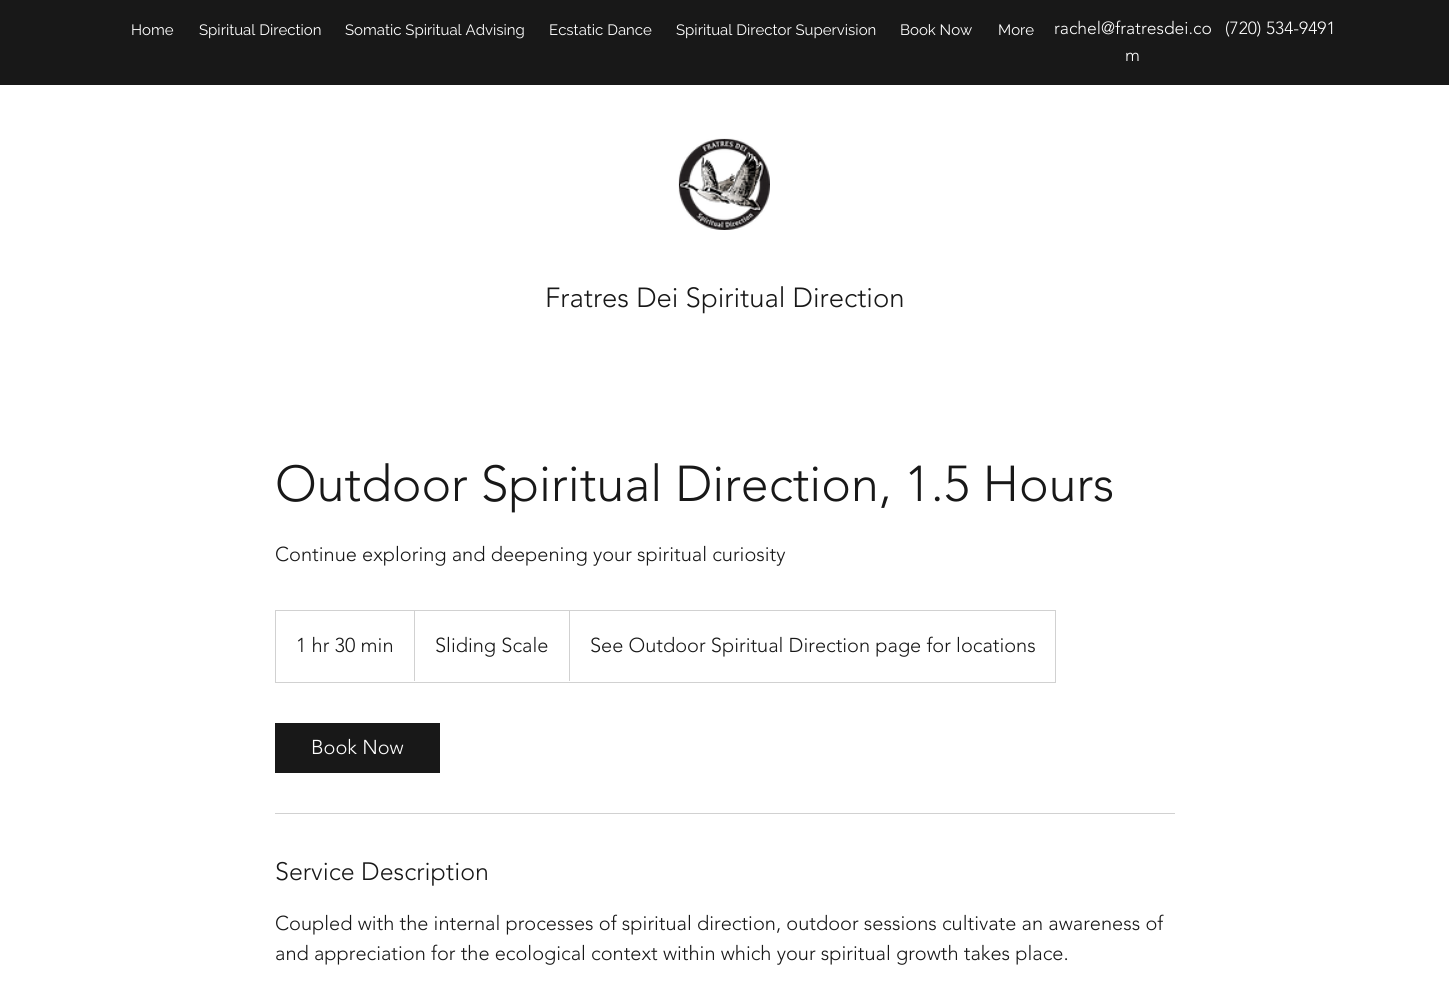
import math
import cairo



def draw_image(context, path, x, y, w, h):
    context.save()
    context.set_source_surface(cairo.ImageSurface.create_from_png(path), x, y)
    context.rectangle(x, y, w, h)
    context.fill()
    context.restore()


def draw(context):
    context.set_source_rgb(1, 1, 1)
    context.paint()
    context.set_source_rgb(24 / 255, 24 / 255, 24 / 255)
    context.rectangle(0, 0, 1449, 85)
    context.fill()
    draw_image(context, "images/1.png", 678, 138, 92, 92)
    context.rectangle(275.5, 610.5, 780, 72)
    context.set_source_rgb(209 / 255, 209 / 255, 209 / 255)
    context.set_line_width(1)
    context.stroke()
    context.new_path()
    context.move_to(414, 681)
    context.line_to(414, 610)
    context.line_to(415, 611)
    context.line_to(415, 681)
    context.close_path()
    context.fill()
    context.new_path()
    context.move_to(569, 681)
    context.line_to(569, 610)
    context.line_to(570, 611)
    context.line_to(570, 681)
    context.close_path()
    context.fill()
    context.set_source_rgb(24 / 255, 24 / 255, 24 / 255)
    context.rectangle(275, 723, 165, 50)
    context.fill()
    context.set_source_rgb(209 / 255, 209 / 255, 209 / 255)
    context.rectangle(275, 813, 900, 1)
    context.fill()
    context.select_font_face("Raleway")
    context.set_font_size(15)
    context.set_source_rgb(1, 1, 1)
    context.move_to(131, 35)
    context.show_text("Home")
    context.move_to(199, 35)
    context.show_text("Spiritual Direction")
    context.move_to(345, 35)
    context.show_text("Somatic Spiritual Advising")
    context.move_to(549, 35)
    context.show_text("Ecstatic Dance")
    context.move_to(676, 35)
    context.show_text("Spiritual Director Supervision")
    context.move_to(900, 35)
    context.show_text("Book Now")
    context.move_to(998, 35)
    context.show_text("More")
    context.select_font_face("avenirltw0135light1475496 Light")
    context.set_font_size(17.5)
    context.move_to(1054, 34)
    context.show_text("rachel@fratresdei.co")
    context.move_to(1125, 61)
    context.show_text("m")
    context.move_to(1225, 34)
    context.show_text("(720) 534-9491")
    context.set_font_size(27.5)
    context.set_source_rgb(24 / 255, 24 / 255, 24 / 255)
    context.move_to(545, 307)
    context.show_text("Fratres Dei Spiritual Direction")
    context.set_font_size(50)
    context.move_to(275, 501)
    context.show_text("Outdoor Spiritual Direction, 1.5 Hours")
    context.set_font_size(20)
    context.move_to(275, 561)
    context.show_text("Continue exploring and deepening your spiritual curiosity")
    context.move_to(296, 652)
    context.show_text("1 hr 30 min")
    context.move_to(435, 652)
    context.show_text("Sliding Scale")
    context.move_to(590, 652)
    context.show_text("See Outdoor Spiritual Direction page for locations")
    context.set_source_rgb(1, 1, 1)
    context.move_to(311, 754)
    context.show_text("Book Now")
    context.set_font_size(25)
    context.set_source_rgb(24 / 255, 24 / 255, 24 / 255)
    context.move_to(275, 880)
    context.show_text("Service Description")
    context.set_font_size(20)
    context.move_to(275, 930)
    context.show_text("Coupled with the internal processes of spiritual direction, outdoor sessions cultivate an awareness of")
    context.move_to(275, 960)
    context.show_text("and appreciation for the ecological context within which your spiritual growth takes place.")


surface = cairo.ImageSurface(cairo.Format.RGB24, 1449, 994)
context = cairo.Context(surface)
options = cairo.FontOptions()
options.set_hint_metrics(cairo.HintMetrics.OFF)
options.set_hint_style(cairo.HintStyle.NONE)
context.set_font_options(options)
context.set_miter_limit(4)
draw(context)
surface.write_to_png("out.png")
